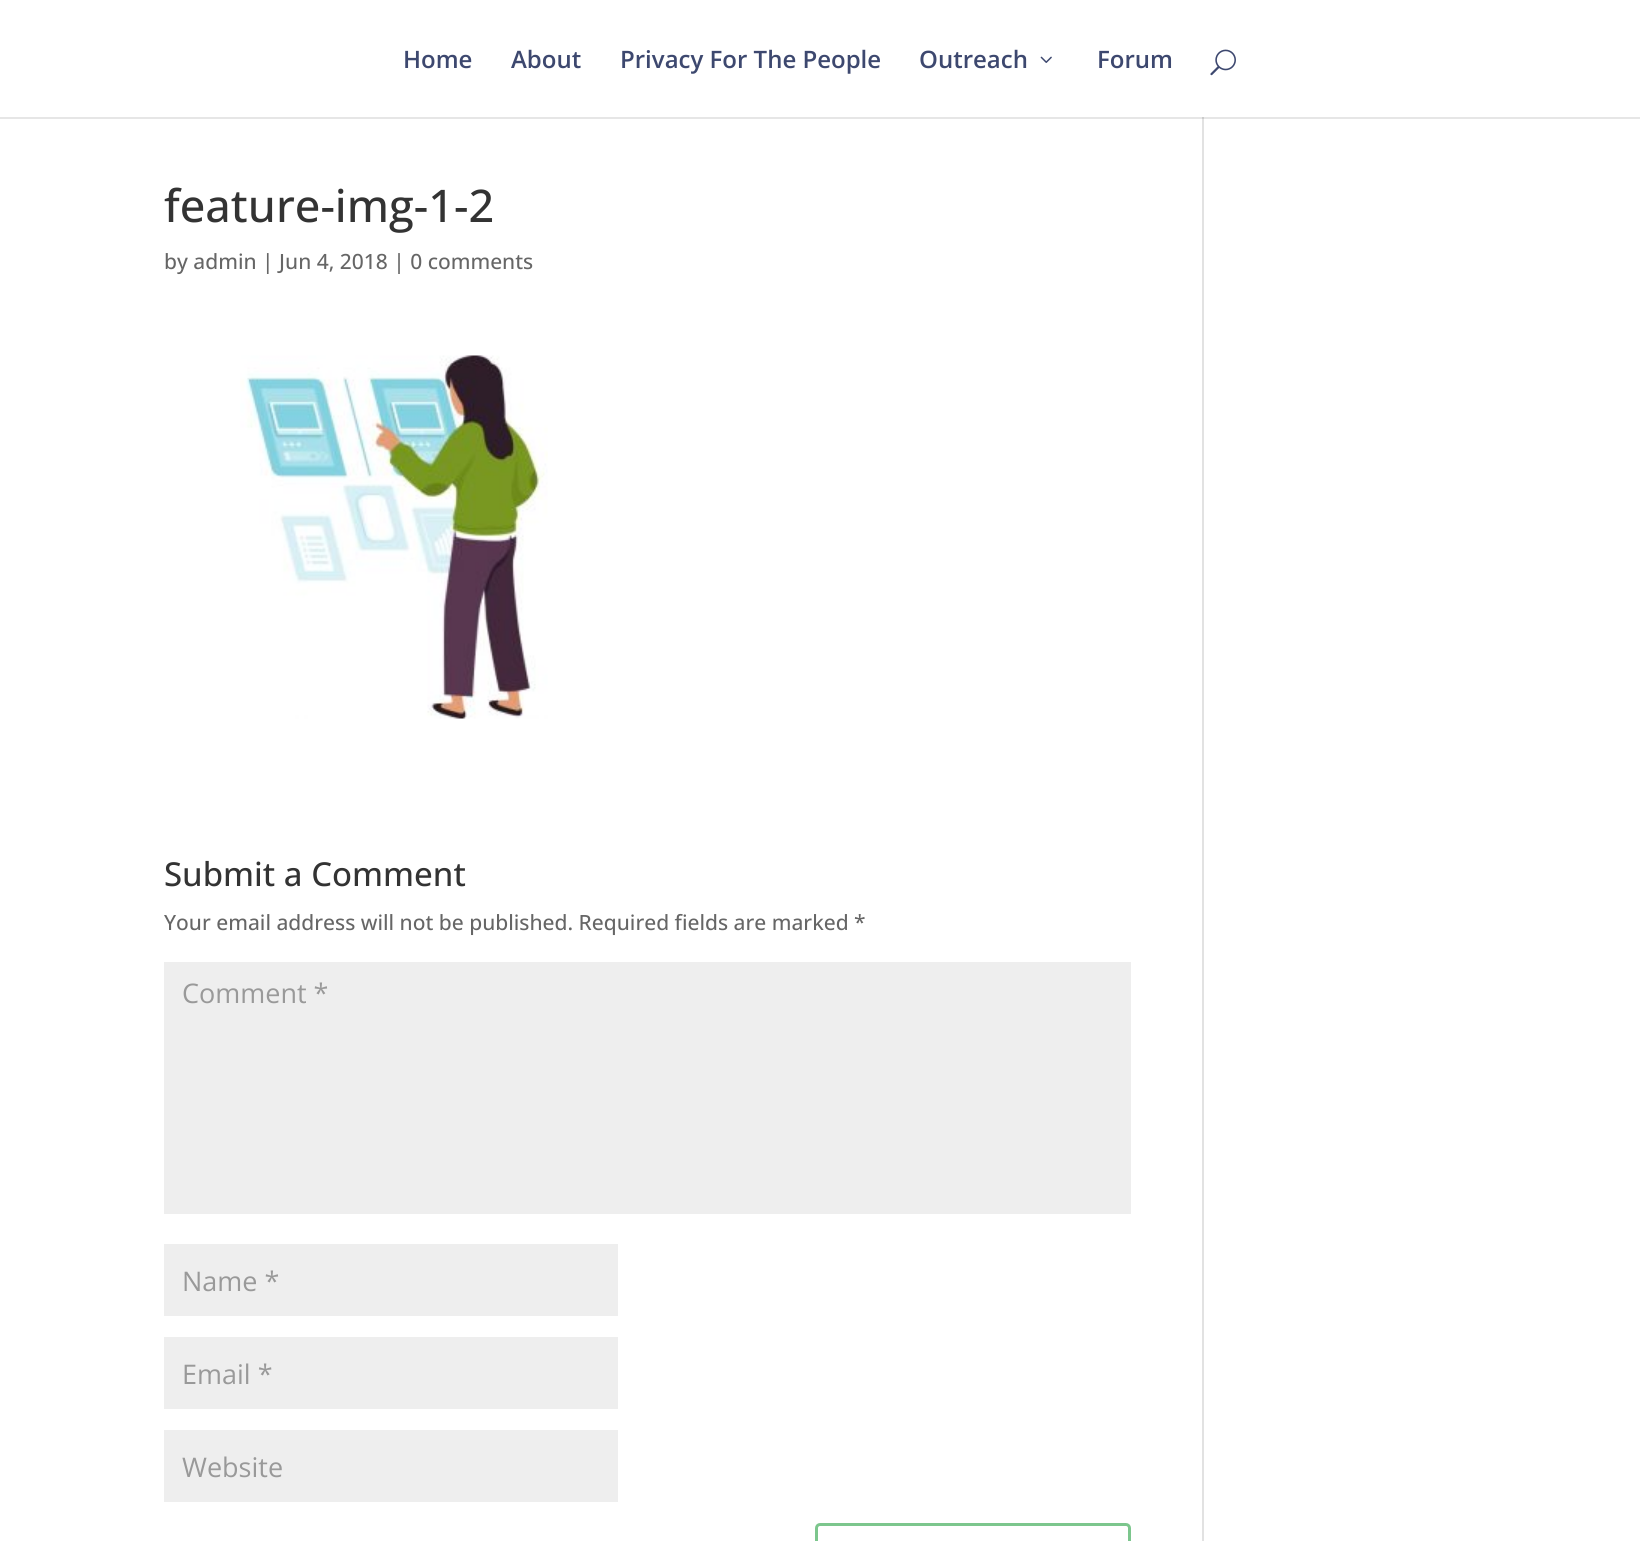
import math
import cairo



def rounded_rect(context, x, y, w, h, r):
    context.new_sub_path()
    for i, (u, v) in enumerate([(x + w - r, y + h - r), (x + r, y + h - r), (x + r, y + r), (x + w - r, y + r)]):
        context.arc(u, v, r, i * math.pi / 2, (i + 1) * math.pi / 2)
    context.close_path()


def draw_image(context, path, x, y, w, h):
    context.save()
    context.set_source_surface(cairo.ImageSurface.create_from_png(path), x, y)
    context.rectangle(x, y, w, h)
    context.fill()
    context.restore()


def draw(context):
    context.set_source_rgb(1, 1, 1)
    context.paint()
    context.set_source_rgb(230 / 255, 230 / 255, 230 / 255)
    context.rectangle(0, 117, 1640, 2)
    context.fill()
    draw_image(context, "images/1.png", 1040, 56, 12, 7)
    draw_image(context, "images/2.png", 1210, 49, 26, 27)
    draw_image(context, "images/3.png", 240, 355, 308, 364)
    context.set_source_rgb(238 / 255, 238 / 255, 238 / 255)
    context.rectangle(164, 962, 967, 252)
    context.fill()
    context.rectangle(164, 1244, 454, 72)
    context.fill()
    context.rectangle(164, 1337, 454, 72)
    context.fill()
    context.rectangle(164, 1430, 454, 72)
    context.fill()
    rounded_rect(context, 816.5, 1524.5, 313, 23, 3.5)
    context.set_source_rgb(124 / 255, 198 / 255, 141 / 255)
    context.set_line_width(3)
    context.stroke()
    context.set_source_rgb(226 / 255, 226 / 255, 226 / 255)
    context.rectangle(1202, 119, 2, 1422)
    context.fill()
    context.set_source_rgb(203 / 255, 203 / 255, 203 / 255)
    context.rectangle(1202, 117, 2, 2)
    context.fill()
    context.select_font_face("Open Sans SemiBold")
    context.set_font_size(24)
    context.set_source_rgb(61 / 255, 72 / 255, 111 / 255)
    context.move_to(403, 68)
    context.show_text("Home")
    context.move_to(511, 68)
    context.show_text("About")
    context.move_to(620, 68)
    context.show_text("Privacy For The People")
    context.move_to(919, 68)
    context.show_text("Outreach")
    context.move_to(1097, 68)
    context.show_text("Forum")
    context.select_font_face("Open Sans Medium")
    context.set_font_size(45)
    context.set_source_rgb(51 / 255, 51 / 255, 51 / 255)
    context.move_to(164, 222)
    context.show_text("feature-img-1-2")
    context.set_font_size(21)
    context.set_source_rgb(102 / 255, 102 / 255, 102 / 255)
    context.move_to(164, 269)
    context.show_text("by admin | Jun 4, 2018 | 0 comments")
    context.set_font_size(33)
    context.set_source_rgb(51 / 255, 51 / 255, 51 / 255)
    context.move_to(164, 886)
    context.show_text("Submit a Comment")
    context.set_font_size(21)
    context.set_source_rgb(102 / 255, 102 / 255, 102 / 255)
    context.move_to(164, 930)
    context.show_text("Your email address will not be published. Required fields are marked *")
    context.select_font_face("Open Sans")
    context.set_font_size(27)
    context.set_source_rgb(153 / 255, 153 / 255, 153 / 255)
    context.move_to(182, 1003)
    context.show_text("Comment *")
    context.move_to(182, 1291)
    context.show_text("Name *")
    context.move_to(182, 1384)
    context.show_text("Email *")
    context.move_to(182, 1477)
    context.show_text("Website")


surface = cairo.ImageSurface(cairo.Format.RGB24, 1640, 1541)
context = cairo.Context(surface)
options = cairo.FontOptions()
options.set_hint_metrics(cairo.HintMetrics.OFF)
options.set_hint_style(cairo.HintStyle.NONE)
context.set_font_options(options)
context.set_miter_limit(4)
draw(context)
surface.write_to_png("out.png")
